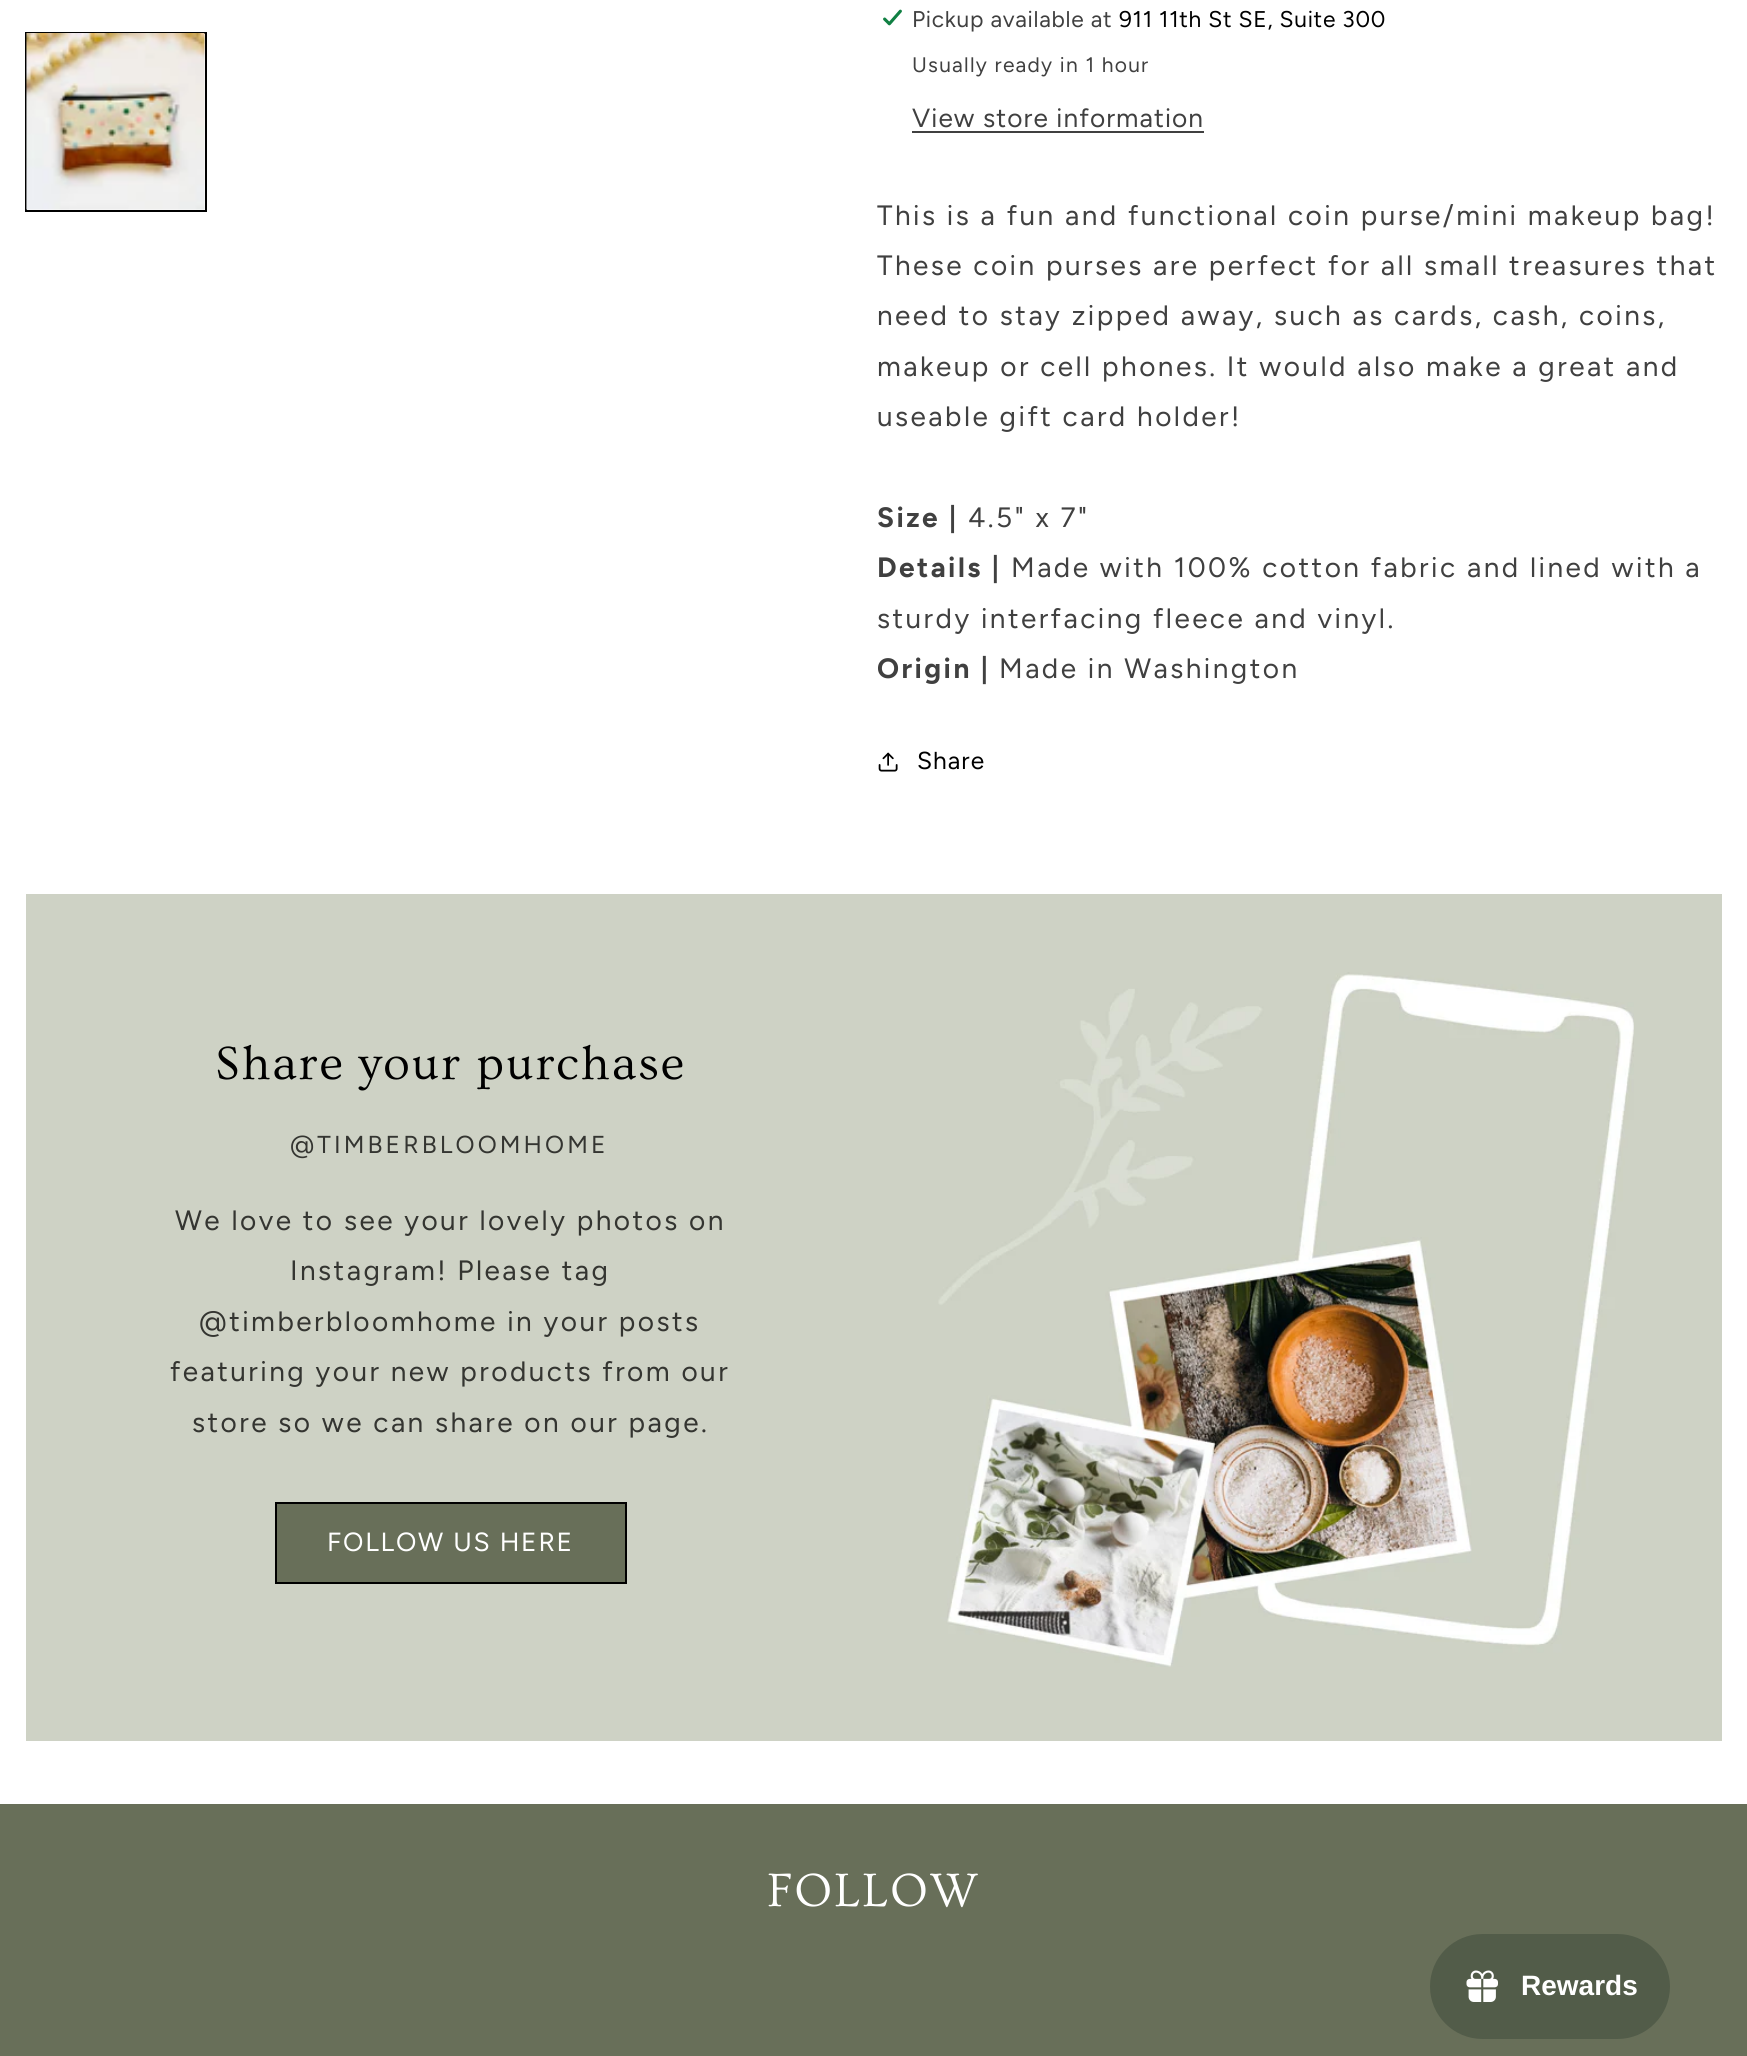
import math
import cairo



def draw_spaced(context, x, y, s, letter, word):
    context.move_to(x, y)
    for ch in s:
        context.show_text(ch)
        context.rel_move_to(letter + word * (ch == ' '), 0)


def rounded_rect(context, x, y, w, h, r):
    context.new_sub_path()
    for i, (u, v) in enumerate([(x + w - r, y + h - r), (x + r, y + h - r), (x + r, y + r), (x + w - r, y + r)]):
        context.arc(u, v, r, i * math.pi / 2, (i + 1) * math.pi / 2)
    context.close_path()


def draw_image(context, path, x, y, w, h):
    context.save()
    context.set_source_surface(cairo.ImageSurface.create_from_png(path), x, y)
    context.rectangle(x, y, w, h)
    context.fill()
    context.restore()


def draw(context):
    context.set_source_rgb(1, 1, 1)
    context.paint()
    context.rectangle(26, 33, 180, 178)
    context.set_source_rgb(0, 0, 0)
    context.stroke()
    draw_image(context, "images/1.png", 26, 33, 179, 177)
    draw_image(context, "images/2.png", 883, 9, 19, 17)
    context.set_source_rgb(64 / 255, 64 / 255, 64 / 255)
    context.rectangle(912, 131, 292, 2)
    context.fill()
    draw_image(context, "images/3.png", 878, 752, 20, 20)
    context.set_source_rgb(206 / 255, 210 / 255, 197 / 255)
    context.rectangle(26, 894, 1696, 847)
    context.fill()
    draw_image(context, "images/4.png", 938, 972, 696, 695)
    context.set_source_rgb(104 / 255, 111 / 255, 89 / 255)
    context.rectangle(277, 1504, 348, 78)
    context.fill()
    context.rectangle(276, 1503, 350, 80)
    context.set_source_rgb(0, 0, 0)
    context.stroke()
    context.set_source_rgb(104 / 255, 111 / 255, 89 / 255)
    context.rectangle(0, 1804, 1747, 252)
    context.fill()
    context.set_source_rgb(82 / 255, 92 / 255, 73 / 255)
    rounded_rect(context, 1430, 1934, 240, 105, 52.5)
    context.fill()
    draw_image(context, "images/5.png", 1466, 1970, 32, 32)
    context.select_font_face("Figtree")
    context.set_font_size(22.75)
    context.set_source_rgb(64 / 255, 64 / 255, 64 / 255)
    draw_spaced(context, 912, 27, "Pickup available at", 0.7, 0)
    context.set_source_rgb(0, 0, 0)
    draw_spaced(context, 1119, 27, "911 11th St SE, Suite 300", 0.7, 0)
    context.set_font_size(21)
    context.set_source_rgb(64 / 255, 64 / 255, 64 / 255)
    draw_spaced(context, 912, 72, "Usually ready in 1 hour", 1.25, 0)
    context.set_font_size(26.25)
    draw_spaced(context, 912, 127, "View store information", 1.05, 0)
    context.set_font_size(28)
    draw_spaced(context, 877, 225, "This is a fun and functional coin purse/mini makeup bag!", 2.45, 0)
    draw_spaced(context, 877, 275, "These coin purses are perfect for all small treasures that", 2.45, 0)
    draw_spaced(context, 877, 325, "need to stay zipped away, such as cards, cash, coins,", 2.45, 0)
    draw_spaced(context, 877, 376, "makeup or cell phones. It would also make a great and", 2.45, 0)
    draw_spaced(context, 877, 426, "useable gift card holder!", 2.45, 0)
    context.select_font_face("Figtree", cairo.FontSlant.NORMAL, cairo.FontWeight.BOLD)
    draw_spaced(context, 877, 527, "Size |", 2.45, 0)
    context.select_font_face("Figtree")
    draw_spaced(context, 968, 527, "4.5\" x 7\"", 2.45, 0)
    context.select_font_face("Figtree", cairo.FontSlant.NORMAL, cairo.FontWeight.BOLD)
    draw_spaced(context, 877, 577, "Details |", 2.45, 0)
    context.select_font_face("Figtree")
    draw_spaced(context, 1011, 577, "Made with 100% cotton fabric and lined with a", 2.45, 0)
    draw_spaced(context, 877, 628, "sturdy interfacing fleece and vinyl.", 2.45, 0)
    context.select_font_face("Figtree", cairo.FontSlant.NORMAL, cairo.FontWeight.BOLD)
    draw_spaced(context, 877, 678, "Origin |", 2.45, 0)
    context.select_font_face("Figtree")
    draw_spaced(context, 999, 678, "Made in Washington", 2.45, 0)
    context.set_font_size(24.5)
    context.set_source_rgb(0, 0, 0)
    draw_spaced(context, 917, 769, "Share", 1.05, 0)
    context.select_font_face("Ovo")
    context.set_font_size(49)
    draw_spaced(context, 215, 1079, "Share your purchase", 1.75, 0)
    context.select_font_face("Figtree")
    context.set_font_size(24.5)
    context.set_source_rgb(52 / 255, 53 / 255, 49 / 255)
    draw_spaced(context, 290, 1153, "@TIMBERBLOOMHOME", 3.1, 0)
    context.set_font_size(28)
    draw_spaced(context, 175, 1230, "We love to see your lovely photos on", 2.45, 0)
    draw_spaced(context, 290, 1280, "Instagram! Please tag", 2.45, 0)
    draw_spaced(context, 199, 1331, "@timberbloomhome in your posts", 2.45, 0)
    draw_spaced(context, 170, 1381, "featuring your new products from our", 2.45, 0)
    draw_spaced(context, 192, 1432, "store so we can share on our page.", 2.45, 0)
    context.set_font_size(26.25)
    context.set_source_rgb(1, 1, 1)
    draw_spaced(context, 327, 1551, "FOLLOW US HERE", 1.75, 0)
    context.select_font_face("Ovo")
    context.set_font_size(49)
    draw_spaced(context, 767, 1906, "FOLLOW", 1.75, 0)
    context.select_font_face("Liberation Sans", cairo.FontSlant.NORMAL, cairo.FontWeight.BOLD)
    context.set_font_size(28)
    context.move_to(1521, 1995)
    context.show_text("Rewards")


surface = cairo.ImageSurface(cairo.Format.RGB24, 1747, 2056)
context = cairo.Context(surface)
options = cairo.FontOptions()
options.set_hint_metrics(cairo.HintMetrics.OFF)
options.set_hint_style(cairo.HintStyle.NONE)
context.set_font_options(options)
context.set_miter_limit(4)
draw(context)
surface.write_to_png("out.png")
